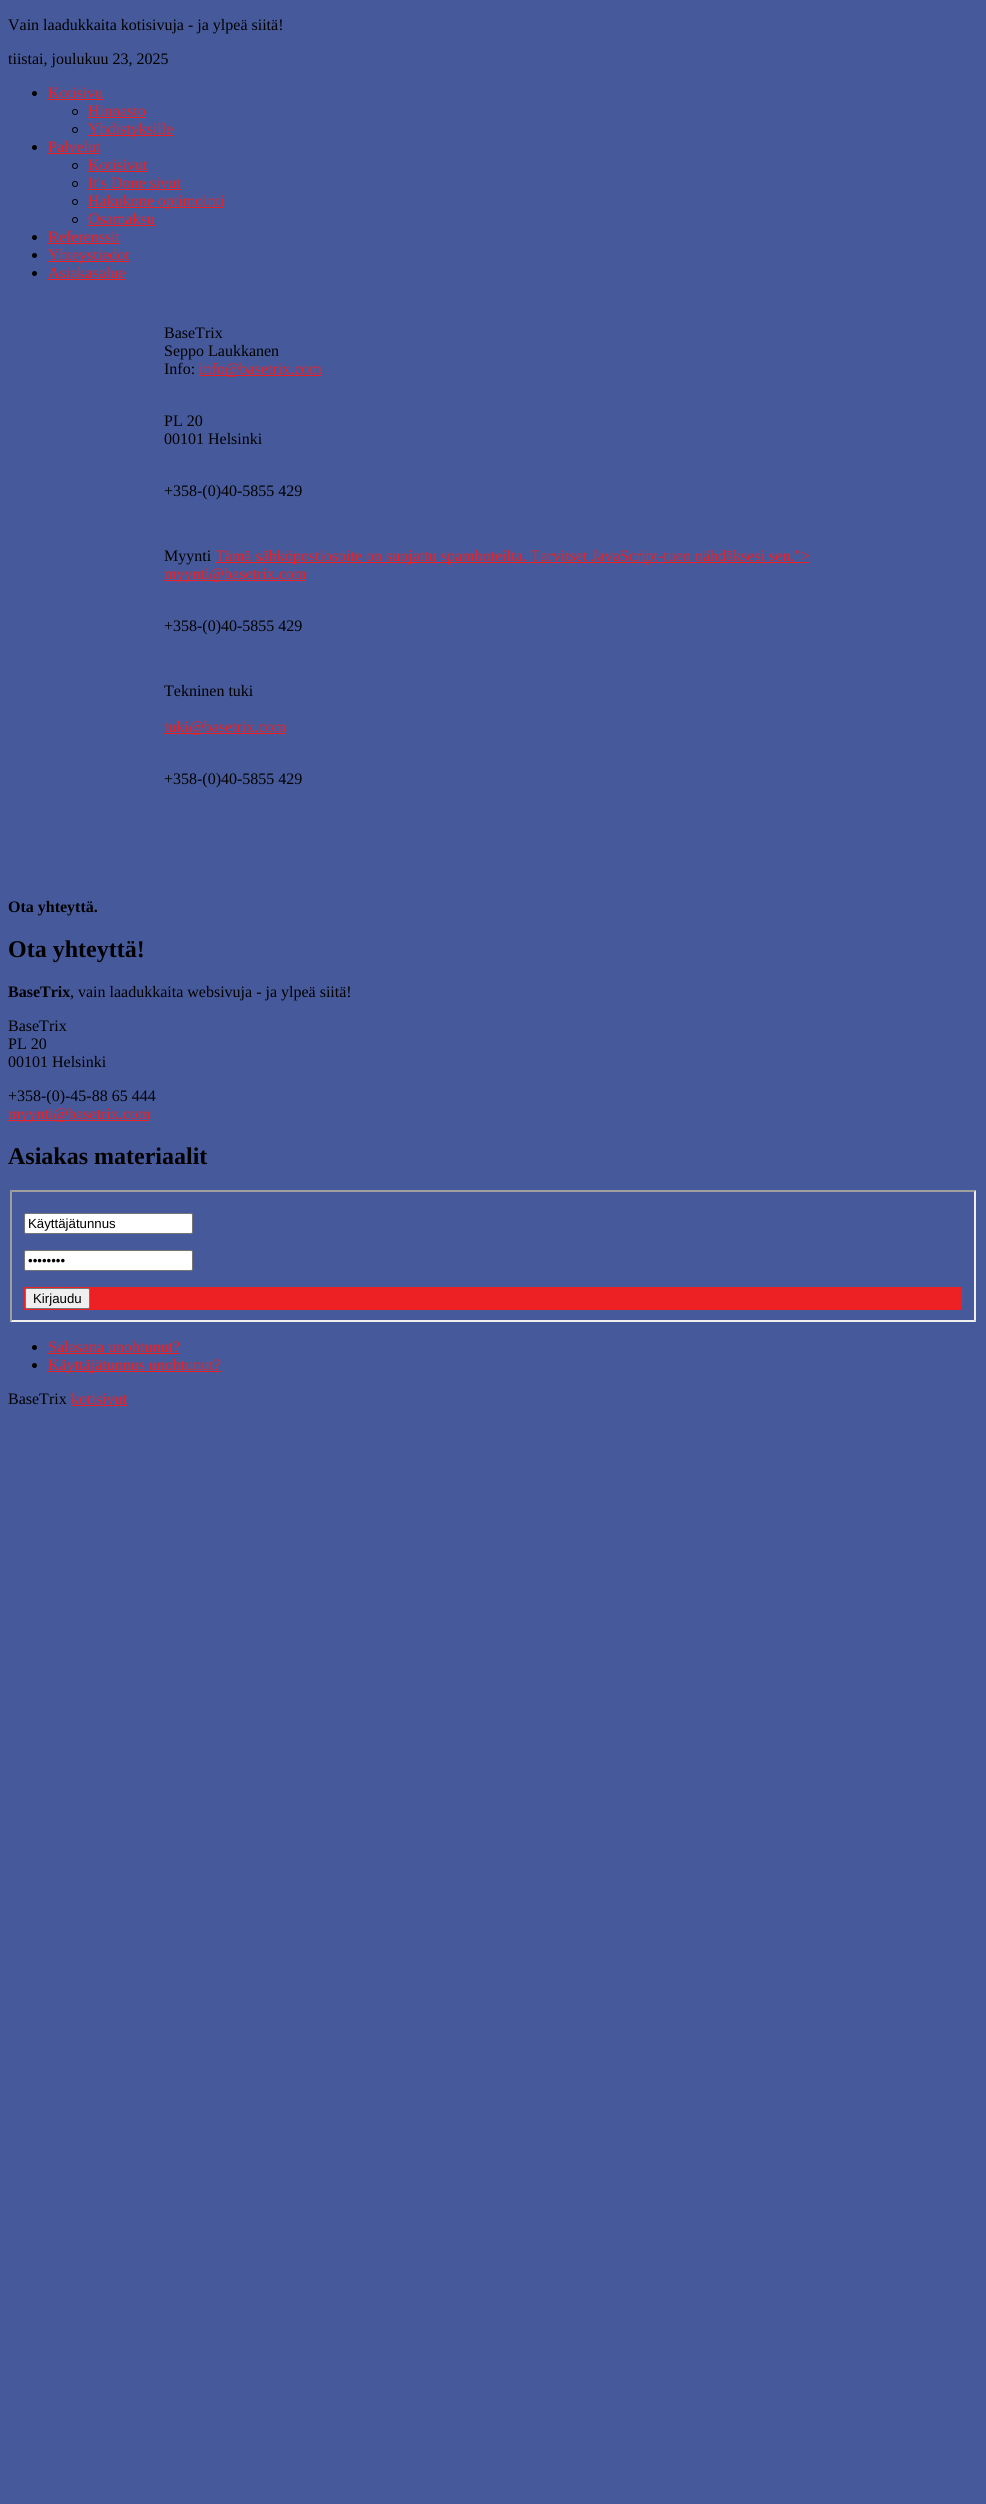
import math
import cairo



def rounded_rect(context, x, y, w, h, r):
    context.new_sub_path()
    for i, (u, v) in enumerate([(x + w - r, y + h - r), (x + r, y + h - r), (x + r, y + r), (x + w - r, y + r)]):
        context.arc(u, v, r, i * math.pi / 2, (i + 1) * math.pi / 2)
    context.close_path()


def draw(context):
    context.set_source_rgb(70 / 255, 90 / 255, 155 / 255)
    context.paint()
    context.set_source_rgb(0, 0, 0)
    context.arc(34.5, 93.5, 2.5, 0, 2 * math.pi)
    context.fill()
    context.set_source_rgb(237 / 255, 32 / 255, 36 / 255)
    context.rectangle(48, 99, 55, 1)
    context.fill()
    context.arc(75, 112, 2.5, 0, 2 * math.pi)
    context.set_source_rgb(0, 0, 0)
    context.set_line_width(1)
    context.stroke()
    context.set_source_rgb(237 / 255, 32 / 255, 36 / 255)
    context.rectangle(88, 117, 58, 1)
    context.fill()
    context.arc(75, 130, 2.5, 0, 2 * math.pi)
    context.set_source_rgb(0, 0, 0)
    context.stroke()
    context.set_source_rgb(237 / 255, 32 / 255, 36 / 255)
    context.rectangle(88, 135, 85, 1)
    context.fill()
    context.set_source_rgb(0, 0, 0)
    context.arc(34.5, 147.5, 2.5, 0, 2 * math.pi)
    context.fill()
    context.set_source_rgb(237 / 255, 32 / 255, 36 / 255)
    context.rectangle(48, 153, 52, 1)
    context.fill()
    context.arc(75, 166, 2.5, 0, 2 * math.pi)
    context.set_source_rgb(0, 0, 0)
    context.stroke()
    context.set_source_rgb(237 / 255, 32 / 255, 36 / 255)
    context.rectangle(88, 171, 60, 1)
    context.fill()
    context.arc(75, 184, 2.5, 0, 2 * math.pi)
    context.set_source_rgb(0, 0, 0)
    context.stroke()
    context.set_source_rgb(237 / 255, 32 / 255, 36 / 255)
    context.rectangle(88, 189, 93, 1)
    context.fill()
    context.arc(75, 202, 2.5, 0, 2 * math.pi)
    context.set_source_rgb(0, 0, 0)
    context.stroke()
    context.set_source_rgb(237 / 255, 32 / 255, 36 / 255)
    context.rectangle(88, 207, 136, 1)
    context.fill()
    context.arc(75, 220, 2.5, 0, 2 * math.pi)
    context.set_source_rgb(0, 0, 0)
    context.stroke()
    context.set_source_rgb(237 / 255, 32 / 255, 36 / 255)
    context.rectangle(88, 225, 67, 1)
    context.fill()
    context.set_source_rgb(0, 0, 0)
    context.arc(34.5, 237.5, 2.5, 0, 2 * math.pi)
    context.fill()
    context.set_source_rgb(237 / 255, 32 / 255, 36 / 255)
    context.rectangle(48, 243, 72, 1)
    context.fill()
    context.set_source_rgb(0, 0, 0)
    context.arc(34.5, 255.5, 2.5, 0, 2 * math.pi)
    context.fill()
    context.set_source_rgb(237 / 255, 32 / 255, 36 / 255)
    context.rectangle(48, 261, 82, 1)
    context.fill()
    context.set_source_rgb(0, 0, 0)
    context.arc(34.5, 273.5, 2.5, 0, 2 * math.pi)
    context.fill()
    context.set_source_rgb(237 / 255, 32 / 255, 36 / 255)
    context.rectangle(48, 279, 77, 1)
    context.fill()
    context.rectangle(199, 375, 123, 1)
    context.fill()
    context.rectangle(215, 562, 595, 1)
    context.fill()
    context.rectangle(164, 580, 142, 1)
    context.fill()
    context.rectangle(164, 733, 122, 1)
    context.fill()
    context.rectangle(8, 1120, 142, 1)
    context.fill()
    context.set_source_rgb(159 / 255, 159 / 255, 159 / 255)
    context.new_path()
    context.move_to(10, 1190)
    context.line_to(976, 1190)
    context.line_to(974, 1192)
    context.line_to(12, 1192)
    context.close_path()
    context.fill()
    context.set_source_rgb(239 / 255, 239 / 255, 239 / 255)
    context.new_path()
    context.move_to(976, 1190)
    context.line_to(976, 1322)
    context.line_to(974, 1320)
    context.line_to(974, 1192)
    context.close_path()
    context.fill()
    context.new_path()
    context.move_to(976, 1322)
    context.line_to(10, 1322)
    context.line_to(12, 1320)
    context.line_to(974, 1320)
    context.close_path()
    context.fill()
    context.set_source_rgb(159 / 255, 159 / 255, 159 / 255)
    context.new_path()
    context.move_to(10, 1322)
    context.line_to(10, 1190)
    context.line_to(12, 1192)
    context.line_to(12, 1320)
    context.close_path()
    context.fill()
    context.set_source_rgb(1, 1, 1)
    rounded_rect(context, 24.5, 1213.5, 168, 20, 1.5)
    context.fill_preserve()
    context.set_source_rgb(118 / 255, 118 / 255, 118 / 255)
    context.stroke()
    context.set_source_rgb(1, 1, 1)
    rounded_rect(context, 24.5, 1250.5, 168, 20, 1.5)
    context.fill_preserve()
    context.set_source_rgb(118 / 255, 118 / 255, 118 / 255)
    context.stroke()
    context.set_source_rgb(237 / 255, 32 / 255, 36 / 255)
    context.rectangle(24, 1287, 938, 23)
    context.fill()
    context.set_source_rgb(239 / 255, 239 / 255, 239 / 255)
    rounded_rect(context, 25.5, 1288.5, 64, 20, 1.5)
    context.fill_preserve()
    context.set_source_rgb(118 / 255, 118 / 255, 118 / 255)
    context.stroke()
    context.set_source_rgb(0, 0, 0)
    context.arc(34.5, 1347.5, 2.5, 0, 2 * math.pi)
    context.fill()
    context.set_source_rgb(237 / 255, 32 / 255, 36 / 255)
    context.rectangle(48, 1353, 132, 1)
    context.fill()
    context.set_source_rgb(0, 0, 0)
    context.arc(34.5, 1365.5, 2.5, 0, 2 * math.pi)
    context.fill()
    context.set_source_rgb(237 / 255, 32 / 255, 36 / 255)
    context.rectangle(48, 1371, 173, 1)
    context.fill()
    context.rectangle(71, 1405, 56, 1)
    context.fill()
    context.select_font_face("Liberation Serif")
    context.set_font_size(16)
    context.set_source_rgb(0, 0, 0)
    context.move_to(8, 30)
    context.show_text("Vain laadukkaita kotisivuja - ja ylpeä siitä!")
    context.move_to(8, 64)
    context.show_text("tiistai, joulukuu 23, 2025")
    context.set_source_rgb(237 / 255, 32 / 255, 36 / 255)
    context.move_to(48, 98)
    context.show_text("Kotisivu")
    context.move_to(88, 116)
    context.show_text("Hinnasto")
    context.move_to(88, 134)
    context.show_text("Yhdistyksille")
    context.move_to(48, 152)
    context.show_text("Palvelut")
    context.move_to(88, 170)
    context.show_text("Kotisivut")
    context.move_to(88, 188)
    context.show_text("It's Done sivut")
    context.move_to(88, 206)
    context.show_text("Hakukone optimointi")
    context.move_to(88, 224)
    context.show_text("Osamaksu")
    context.move_to(48, 242)
    context.show_text("Referenssit")
    context.move_to(48, 260)
    context.show_text("Yhteystiedot")
    context.move_to(48, 278)
    context.show_text("Asiakasalue")
    context.set_source_rgb(0, 0, 0)
    context.move_to(164, 338)
    context.show_text("BaseTrix")
    context.move_to(164, 356)
    context.show_text("Seppo Laukkanen")
    context.move_to(164, 374)
    context.show_text("Info:")
    context.set_source_rgb(237 / 255, 32 / 255, 36 / 255)
    context.move_to(199, 374)
    context.show_text("info@basetrix.com")
    context.set_source_rgb(0, 0, 0)
    context.move_to(164, 426)
    context.show_text("PL 20")
    context.move_to(164, 444)
    context.show_text("00101 Helsinki")
    context.move_to(164, 496)
    context.show_text("+358-(0)40-5855 429")
    context.move_to(164, 561)
    context.show_text("Myynti")
    context.set_source_rgb(237 / 255, 32 / 255, 36 / 255)
    context.move_to(215, 561)
    context.show_text("Tämä sähköpostiosoite on suojattu spamboteilta. Tarvitset JavaScript-tuen nähdäksesi sen.\">")
    context.move_to(164, 579)
    context.show_text("myynti@basetrix.com")
    context.set_source_rgb(0, 0, 0)
    context.move_to(164, 631)
    context.show_text("+358-(0)40-5855 429")
    context.move_to(164, 696)
    context.show_text("Tekninen tuki")
    context.set_source_rgb(237 / 255, 32 / 255, 36 / 255)
    context.move_to(164, 732)
    context.show_text("tuki@basetrix.com")
    context.set_source_rgb(0, 0, 0)
    context.move_to(164, 784)
    context.show_text("+358-(0)40-5855 429")
    context.select_font_face("Liberation Serif", cairo.FontSlant.NORMAL, cairo.FontWeight.BOLD)
    context.move_to(8, 912)
    context.show_text("Ota yhteyttä.")
    context.set_font_size(24)
    context.move_to(8, 957)
    context.show_text("Ota yhteyttä!")
    context.set_font_size(16)
    context.move_to(8, 997)
    context.show_text("BaseTrix")
    context.select_font_face("Liberation Serif")
    context.move_to(70, 997)
    context.show_text(", vain laadukkaita websivuja - ja ylpeä siitä!")
    context.move_to(8, 1031)
    context.show_text("BaseTrix")
    context.move_to(8, 1049)
    context.show_text("PL 20")
    context.move_to(8, 1067)
    context.show_text("00101 Helsinki")
    context.move_to(8, 1101)
    context.show_text("+358-(0)-45-88 65 444")
    context.set_source_rgb(237 / 255, 32 / 255, 36 / 255)
    context.move_to(8, 1119)
    context.show_text("myynti@basetrix.com")
    context.select_font_face("Liberation Serif", cairo.FontSlant.NORMAL, cairo.FontWeight.BOLD)
    context.set_font_size(24)
    context.set_source_rgb(0, 0, 0)
    context.move_to(8, 1164)
    context.show_text("Asiakas materiaalit")
    context.select_font_face("Liberation Sans")
    context.set_font_size(13.25)
    context.move_to(28, 1228)
    context.show_text("Käyttäjätunnus")
    context.move_to(28, 1265)
    context.show_text("••••••••")
    context.move_to(33, 1303)
    context.show_text("Kirjaudu")
    context.select_font_face("Liberation Serif")
    context.set_font_size(16)
    context.set_source_rgb(237 / 255, 32 / 255, 36 / 255)
    context.move_to(48, 1352)
    context.show_text("Salasana unohtunut?")
    context.move_to(48, 1370)
    context.show_text("Käyttäjätunnus unohtunut?")
    context.set_source_rgb(0, 0, 0)
    context.move_to(8, 1404)
    context.show_text("BaseTrix")
    context.set_source_rgb(237 / 255, 32 / 255, 36 / 255)
    context.move_to(71, 1404)
    context.show_text("kotisivut")


surface = cairo.ImageSurface(cairo.Format.RGB24, 986, 2504)
context = cairo.Context(surface)
options = cairo.FontOptions()
options.set_hint_metrics(cairo.HintMetrics.OFF)
options.set_hint_style(cairo.HintStyle.NONE)
context.set_font_options(options)
context.set_miter_limit(4)
draw(context)
surface.write_to_png("out.png")
